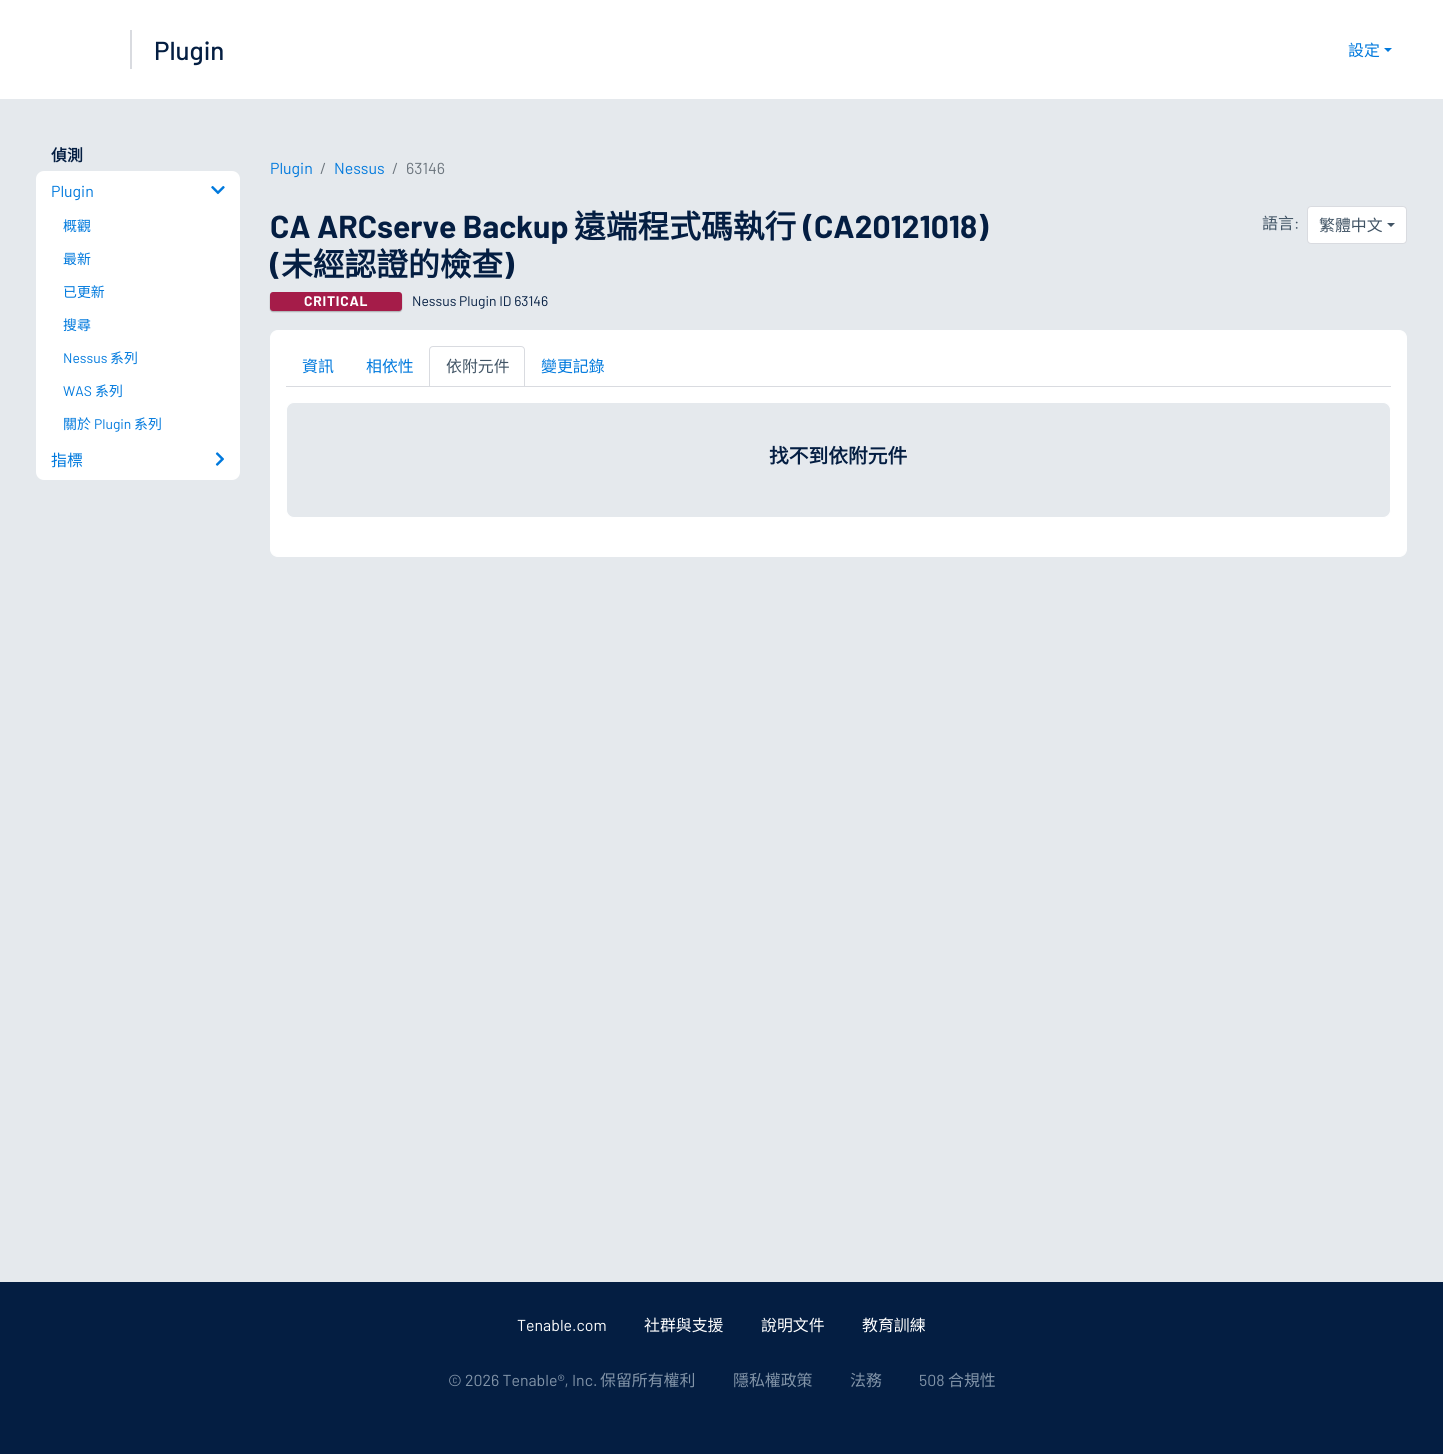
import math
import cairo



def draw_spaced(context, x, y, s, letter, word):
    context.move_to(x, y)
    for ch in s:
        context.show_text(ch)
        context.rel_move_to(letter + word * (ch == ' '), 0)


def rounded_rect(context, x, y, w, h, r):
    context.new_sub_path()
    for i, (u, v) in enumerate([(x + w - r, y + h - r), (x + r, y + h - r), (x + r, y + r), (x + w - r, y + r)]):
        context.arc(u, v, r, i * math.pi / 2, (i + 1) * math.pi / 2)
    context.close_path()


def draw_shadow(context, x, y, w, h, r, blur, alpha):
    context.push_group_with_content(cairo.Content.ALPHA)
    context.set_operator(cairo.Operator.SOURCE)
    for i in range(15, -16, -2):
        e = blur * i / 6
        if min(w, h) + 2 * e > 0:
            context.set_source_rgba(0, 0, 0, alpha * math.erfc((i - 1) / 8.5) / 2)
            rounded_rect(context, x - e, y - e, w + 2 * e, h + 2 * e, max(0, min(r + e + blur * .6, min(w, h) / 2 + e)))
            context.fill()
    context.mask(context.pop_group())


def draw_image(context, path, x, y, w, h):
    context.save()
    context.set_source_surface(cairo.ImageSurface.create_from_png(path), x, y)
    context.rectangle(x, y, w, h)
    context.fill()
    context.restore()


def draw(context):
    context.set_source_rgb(1, 1, 1)
    context.paint()
    context.set_source_rgb(217 / 255, 219 / 255, 224 / 255)
    context.rectangle(130, 30, 2, 39)
    context.fill()
    context.set_source_rgb(0, 121 / 255, 221 / 255)
    context.new_path()
    context.move_to(1384, 48)
    context.line_to(1392, 48)
    context.line_to(1388, 52)
    context.close_path()
    context.fill()
    context.set_source_rgb(229 / 255, 233 / 255, 237 / 255)
    context.rectangle(0, 99, 1443, 1183)
    context.fill()
    context.set_source_rgb(1, 1, 1)
    rounded_rect(context, 36, 171, 204, 309, 8)
    context.fill()
    draw_image(context, "images/1.png", 211, 186, 14, 9)
    draw_image(context, "images/2.png", 215, 452, 9, 14)
    context.set_source_rgb(0, 0, 0)
    draw_shadow(context, 270, 293, 132, 19, 3, 0.5, 0.25)
    context.set_source_rgb(165 / 255, 28 / 255, 73 / 255)
    rounded_rect(context, 270, 292, 132, 19, 3)
    context.fill()
    context.set_source_rgb(1, 1, 1)
    rounded_rect(context, 1307.5, 206.5, 99, 37, 3.5)
    context.fill_preserve()
    context.set_source_rgb(217 / 255, 219 / 255, 224 / 255)
    context.set_line_width(1)
    context.stroke()
    context.set_source_rgb(65 / 255, 84 / 255, 101 / 255)
    context.new_path()
    context.move_to(1387, 223)
    context.line_to(1395, 223)
    context.line_to(1391, 227)
    context.close_path()
    context.fill()
    context.set_source_rgb(1, 1, 1)
    rounded_rect(context, 270.5, 330.5, 1136, 226, 7.5)
    context.fill_preserve()
    context.stroke()
    context.set_source_rgb(217 / 255, 219 / 255, 224 / 255)
    context.rectangle(286, 386, 1105, 1)
    context.fill()
    context.set_source_rgb(1, 1, 1)
    context.new_path()
    context.move_to(433, 346.5)
    context.line_to(521, 346.5)
    context.curve_to(523, 346.5, 524.5, 348, 524.5, 350)
    context.line_to(524.5, 386.5)
    context.line_to(429.5, 386.5)
    context.line_to(429.5, 350)
    context.curve_to(429.5, 348, 431, 346.5, 433, 346.5)
    context.close_path()
    context.fill_preserve()
    context.set_source_rgb(217 / 255, 219 / 255, 224 / 255)
    context.stroke()
    context.set_source_rgb(229 / 255, 233 / 255, 237 / 255)
    rounded_rect(context, 286.5, 402.5, 1104, 115, 7.5)
    context.fill_preserve()
    context.set_source_rgb(1, 1, 1)
    context.stroke()
    context.set_source_rgb(4 / 255, 30 / 255, 66 / 255)
    context.rectangle(0, 1282, 1443, 172)
    context.fill()
    context.select_font_face("Barlow Medium")
    context.set_font_size(26)
    context.move_to(154, 60)
    context.show_text("Plugin")
    context.select_font_face("Noto Sans CJK TC")
    context.set_font_size(15.9)
    context.set_source_rgb(0, 121 / 255, 221 / 255)
    context.move_to(1348, 56)
    context.show_text("設定")
    context.select_font_face("Noto Sans CJK TC", cairo.FontSlant.NORMAL, cairo.FontWeight.BOLD)
    context.set_source_rgb(4 / 255, 30 / 255, 66 / 255)
    context.move_to(51, 161)
    context.show_text("偵測")
    context.select_font_face("Barlow")
    context.set_source_rgb(0, 121 / 255, 221 / 255)
    context.move_to(51, 197)
    context.show_text("Plugin")
    context.select_font_face("Noto Sans CJK TC")
    context.set_font_size(13.9)
    context.move_to(63, 231)
    context.show_text("概觀")
    context.move_to(63, 264)
    context.show_text("最新")
    context.move_to(63, 297)
    context.show_text("已更新")
    context.move_to(63, 330)
    context.show_text("搜尋")
    context.select_font_face("Barlow")
    context.move_to(63, 363)
    context.show_text("Nessus")
    context.select_font_face("Noto Sans CJK TC")
    context.move_to(110, 363)
    context.show_text("系列")
    context.select_font_face("Barlow")
    context.move_to(63, 396)
    context.show_text("WAS")
    context.select_font_face("Noto Sans CJK TC")
    context.move_to(95, 396)
    context.show_text("系列")
    context.move_to(63, 429)
    context.show_text("關於")
    context.select_font_face("Barlow")
    context.move_to(94, 429)
    context.show_text("Plugin")
    context.select_font_face("Noto Sans CJK TC")
    context.move_to(134, 429)
    context.show_text("系列")
    context.set_font_size(15.9)
    context.move_to(51, 466)
    context.show_text("指標")
    context.select_font_face("Barlow")
    context.move_to(270, 174)
    context.show_text("Plugin")
    context.set_source_rgb(108 / 255, 117 / 255, 125 / 255)
    context.move_to(320, 174)
    context.show_text("/")
    context.set_source_rgb(0, 121 / 255, 221 / 255)
    context.move_to(334, 174)
    context.show_text("Nessus")
    context.set_source_rgb(108 / 255, 117 / 255, 125 / 255)
    context.move_to(392, 174)
    context.show_text("/")
    context.move_to(406, 174)
    context.show_text("63146")
    context.select_font_face("Barlow", cairo.FontSlant.NORMAL, cairo.FontWeight.BOLD)
    context.set_font_size(31.75)
    context.set_source_rgb(4 / 255, 30 / 255, 66 / 255)
    context.move_to(270, 238)
    context.show_text("CA ARCserve Backup")
    context.select_font_face("Noto Sans CJK TC", cairo.FontSlant.NORMAL, cairo.FontWeight.BOLD)
    context.move_to(574, 238)
    context.show_text("遠端程式碼執行")
    context.select_font_face("Barlow", cairo.FontSlant.NORMAL, cairo.FontWeight.BOLD)
    context.move_to(803, 238)
    context.show_text("(CA20121018)")
    context.move_to(270, 276)
    context.show_text("(")
    context.select_font_face("Noto Sans CJK TC", cairo.FontSlant.NORMAL, cairo.FontWeight.BOLD)
    context.move_to(281, 276)
    context.show_text("未經認證的檢查")
    context.select_font_face("Barlow", cairo.FontSlant.NORMAL, cairo.FontWeight.BOLD)
    context.move_to(503, 276)
    context.show_text(")")
    context.set_font_size(13.9)
    context.set_source_rgb(1, 1, 1)
    draw_spaced(context, 304, 306, "CRITICAL", 0.75, 0)
    context.select_font_face("Barlow")
    context.set_source_rgb(4 / 255, 30 / 255, 66 / 255)
    context.move_to(412, 306)
    context.show_text("Nessus Plugin ID 63146")
    context.select_font_face("Noto Sans CJK TC")
    context.set_font_size(15.9)
    context.set_source_rgb(65 / 255, 84 / 255, 101 / 255)
    context.move_to(1262, 229)
    context.show_text("語言")
    context.select_font_face("Barlow")
    context.move_to(1294, 229)
    context.show_text(":")
    context.select_font_face("Noto Sans CJK TC")
    context.move_to(1319, 231)
    context.show_text("繁體中文")
    context.set_source_rgb(0, 121 / 255, 221 / 255)
    context.move_to(302, 372)
    context.show_text("資訊")
    context.move_to(366, 372)
    context.show_text("相依性")
    context.set_source_rgb(65 / 255, 84 / 255, 101 / 255)
    context.move_to(446, 372)
    context.show_text("依附元件")
    context.set_source_rgb(0, 121 / 255, 221 / 255)
    context.move_to(541, 372)
    context.show_text("變更記錄")
    context.select_font_face("Noto Sans CJK TC", cairo.FontSlant.NORMAL, cairo.FontWeight.BOLD)
    context.set_font_size(19.75)
    context.set_source_rgb(4 / 255, 30 / 255, 66 / 255)
    context.move_to(769, 463)
    context.show_text("找不到依附元件")
    context.select_font_face("Barlow")
    context.set_font_size(15.9)
    context.set_source_rgb(1, 1, 1)
    context.move_to(517, 1331)
    context.show_text("Tenable.com")
    context.select_font_face("Noto Sans CJK TC")
    context.move_to(644, 1331)
    context.show_text("社群與支援")
    context.move_to(761, 1331)
    context.show_text("說明文件")
    context.move_to(862, 1331)
    context.show_text("教育訓練")
    context.select_font_face("Barlow")
    context.set_source_rgb(130 / 255, 148 / 255, 168 / 255)
    context.move_to(448, 1386)
    context.show_text("© 2026 Tenable®, Inc.")
    context.select_font_face("Noto Sans CJK TC")
    context.move_to(600, 1386)
    context.show_text("保留所有權利")
    context.move_to(733, 1386)
    context.show_text("隱私權政策")
    context.move_to(850, 1386)
    context.show_text("法務")
    context.select_font_face("Barlow")
    context.move_to(919, 1386)
    context.show_text("508")
    context.select_font_face("Noto Sans CJK TC")
    context.move_to(948, 1386)
    context.show_text("合規性")


surface = cairo.ImageSurface(cairo.Format.RGB24, 1443, 1454)
context = cairo.Context(surface)
options = cairo.FontOptions()
options.set_hint_metrics(cairo.HintMetrics.OFF)
options.set_hint_style(cairo.HintStyle.NONE)
context.set_font_options(options)
context.set_miter_limit(4)
draw(context)
surface.write_to_png("out.png")
